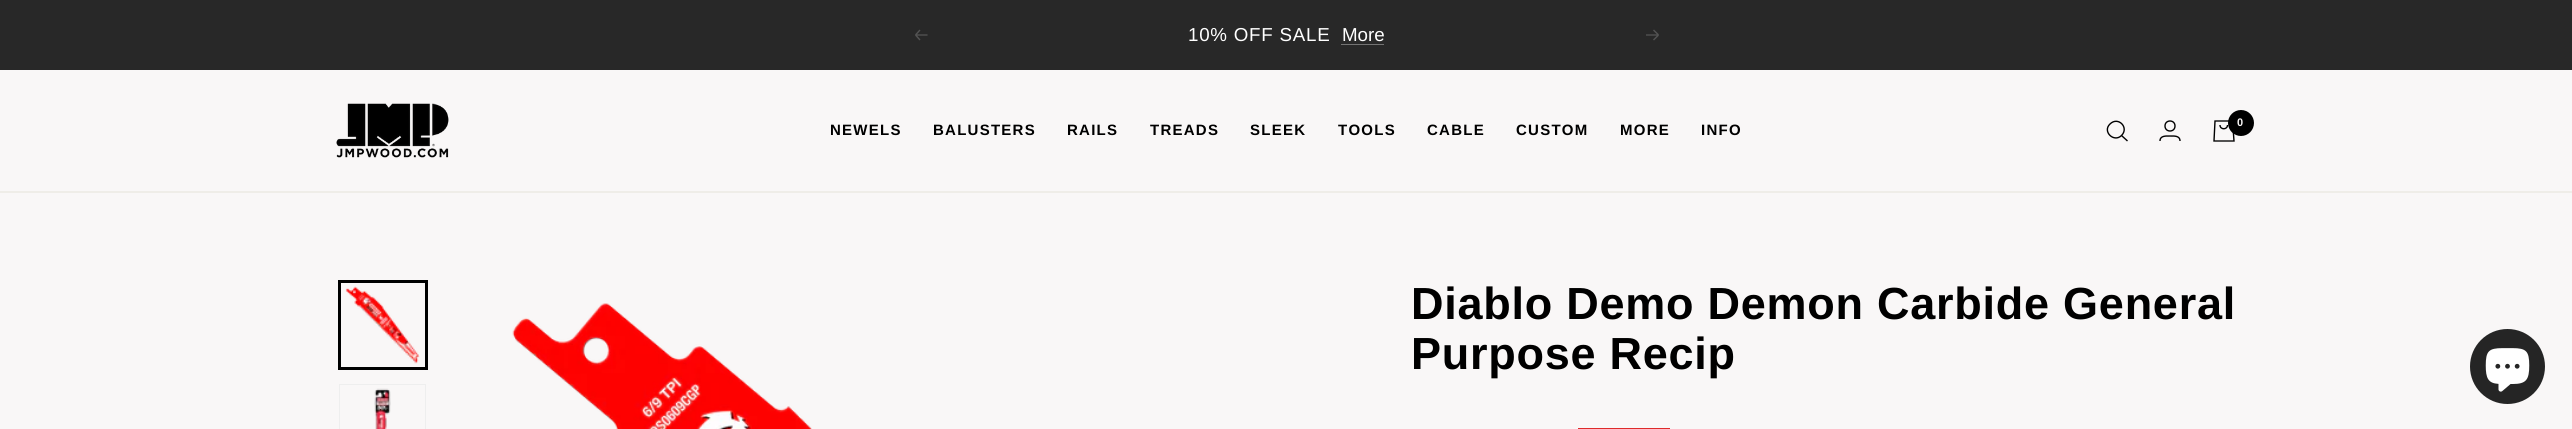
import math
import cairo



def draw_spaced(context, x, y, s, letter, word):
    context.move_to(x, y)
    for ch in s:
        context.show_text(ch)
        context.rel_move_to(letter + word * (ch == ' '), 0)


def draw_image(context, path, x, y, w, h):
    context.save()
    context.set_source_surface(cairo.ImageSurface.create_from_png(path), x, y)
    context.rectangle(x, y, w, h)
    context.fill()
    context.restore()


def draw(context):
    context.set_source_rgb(249 / 255, 247 / 255, 247 / 255)
    context.paint()
    context.set_source_rgb(40 / 255, 40 / 255, 40 / 255)
    context.rectangle(0, 0, 2572, 70)
    context.fill()
    context.new_path()
    context.move_to(927.5, 35)
    context.line_to(915.5, 35)
    context.move_to(915.5, 35)
    context.line_to(920, 40)
    context.move_to(915.5, 35)
    context.line_to(920, 30)
    context.set_source_rgb(83 / 255, 83 / 255, 83 / 255)
    context.set_line_width(1.4)
    context.stroke()
    context.set_source_rgb(115 / 255, 115 / 255, 115 / 255)
    context.rectangle(1341, 44, 43, 1)
    context.fill()
    context.new_path()
    context.move_to(1646, 35)
    context.line_to(1658.5, 35)
    context.move_to(1658.5, 35)
    context.line_to(1653.5, 40)
    context.move_to(1658.5, 35)
    context.line_to(1653.5, 30)
    context.set_source_rgb(83 / 255, 83 / 255, 83 / 255)
    context.stroke()
    context.set_source_rgb(239 / 255, 237 / 255, 232 / 255)
    context.new_path()
    context.move_to(0, 191)
    context.line_to(0, 193)
    context.line_to(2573, 193)
    context.line_to(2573, 71)
    context.line_to(2572, 71)
    context.line_to(2572, 191)
    context.close_path()
    context.fill()
    draw_image(context, "images/1.png", 336, 103, 113, 55)
    context.new_path()
    context.move_to(2121.5, 135.5)
    context.curve_to(2129.5, 127.5, 2118, 116, 2110, 124)
    context.curve_to(2102, 131.5, 2114, 143, 2121.5, 135.5)
    context.close_path()
    context.move_to(2121.5, 135.5)
    context.line_to(2127.5, 141)
    context.set_source_rgb(0, 0, 0)
    context.stroke()
    context.arc(2170, 126, 5, 0, 2 * math.pi)
    context.stroke()
    context.new_path()
    context.move_to(2160, 141)
    context.curve_to(2160, 135.5, 2166, 136, 2170, 136)
    context.curve_to(2174, 136, 2180, 135.5, 2180, 141)
    context.stroke()
    context.new_path()
    context.move_to(2215, 121)
    context.line_to(2232.5, 121)
    context.line_to(2234, 141)
    context.line_to(2214, 141)
    context.close_path()
    context.move_to(2220, 125)
    context.curve_to(2220, 130, 2227.5, 130, 2227.5, 125)
    context.stroke()
    context.arc(2241, 123, 13, 0, 2 * math.pi)
    context.fill()
    draw_image(context, "images/2.png", 345, 286, 75, 78)
    context.rectangle(339.5, 281.5, 87, 87)
    context.set_line_width(3)
    context.stroke()
    context.rectangle(339.5, 384.5, 86, 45)
    context.set_source_rgb(238 / 255, 238 / 255, 238 / 255)
    context.set_line_width(1)
    context.stroke()
    draw_image(context, "images/3.png", 374, 388, 17, 41)
    draw_image(context, "images/4.png", 512, 303, 300, 126)
    context.set_source_rgb(222 / 255, 42 / 255, 42 / 255)
    context.rectangle(1578, 428, 92, 1)
    context.fill()
    context.set_source_rgb(37 / 255, 37 / 255, 37 / 255)
    context.arc(2507.5, 366.5, 37.5, 0, 2 * math.pi)
    context.fill()
    draw_image(context, "images/5.png", 2485, 348, 45, 44)
    context.select_font_face("Liberation Sans")
    context.set_font_size(18.75)
    context.set_source_rgb(1, 1, 1)
    draw_spaced(context, 1188, 41, "10% OFF SALE", 0.75, 0)
    context.move_to(1342, 41)
    context.show_text("More")
    context.select_font_face("Liberation Sans", cairo.FontSlant.NORMAL, cairo.FontWeight.BOLD)
    context.set_font_size(11)
    context.set_source_rgb(249 / 255, 247 / 255, 247 / 255)
    context.move_to(2237, 126)
    context.show_text("0")
    context.set_font_size(15)
    context.set_source_rgb(0, 0, 0)
    draw_spaced(context, 830, 135, "NEWELS", 1.25, 0)
    draw_spaced(context, 933, 135, "BALUSTERS", 1.25, 0)
    draw_spaced(context, 1067, 135, "RAILS", 1.25, 0)
    draw_spaced(context, 1150, 135, "TREADS", 1.25, 0)
    draw_spaced(context, 1250, 135, "SLEEK", 1.25, 0)
    draw_spaced(context, 1338, 135, "TOOLS", 1.25, 0)
    draw_spaced(context, 1427, 135, "CABLE", 1.25, 0)
    draw_spaced(context, 1516, 135, "CUSTOM", 1.25, 0)
    draw_spaced(context, 1620, 135, "MORE", 1.25, 0)
    draw_spaced(context, 1701, 135, "INFO", 1.25, 0)
    context.set_font_size(45)
    draw_spaced(context, 1411, 319, "Diablo Demo Demon Carbide General", 0.75, 0)
    draw_spaced(context, 1411, 369, "Purpose Recip", 0.75, 0)


surface = cairo.ImageSurface(cairo.Format.RGB24, 2572, 429)
context = cairo.Context(surface)
options = cairo.FontOptions()
options.set_hint_metrics(cairo.HintMetrics.OFF)
options.set_hint_style(cairo.HintStyle.NONE)
context.set_font_options(options)
context.set_miter_limit(4)
draw(context)
surface.write_to_png("out.png")
